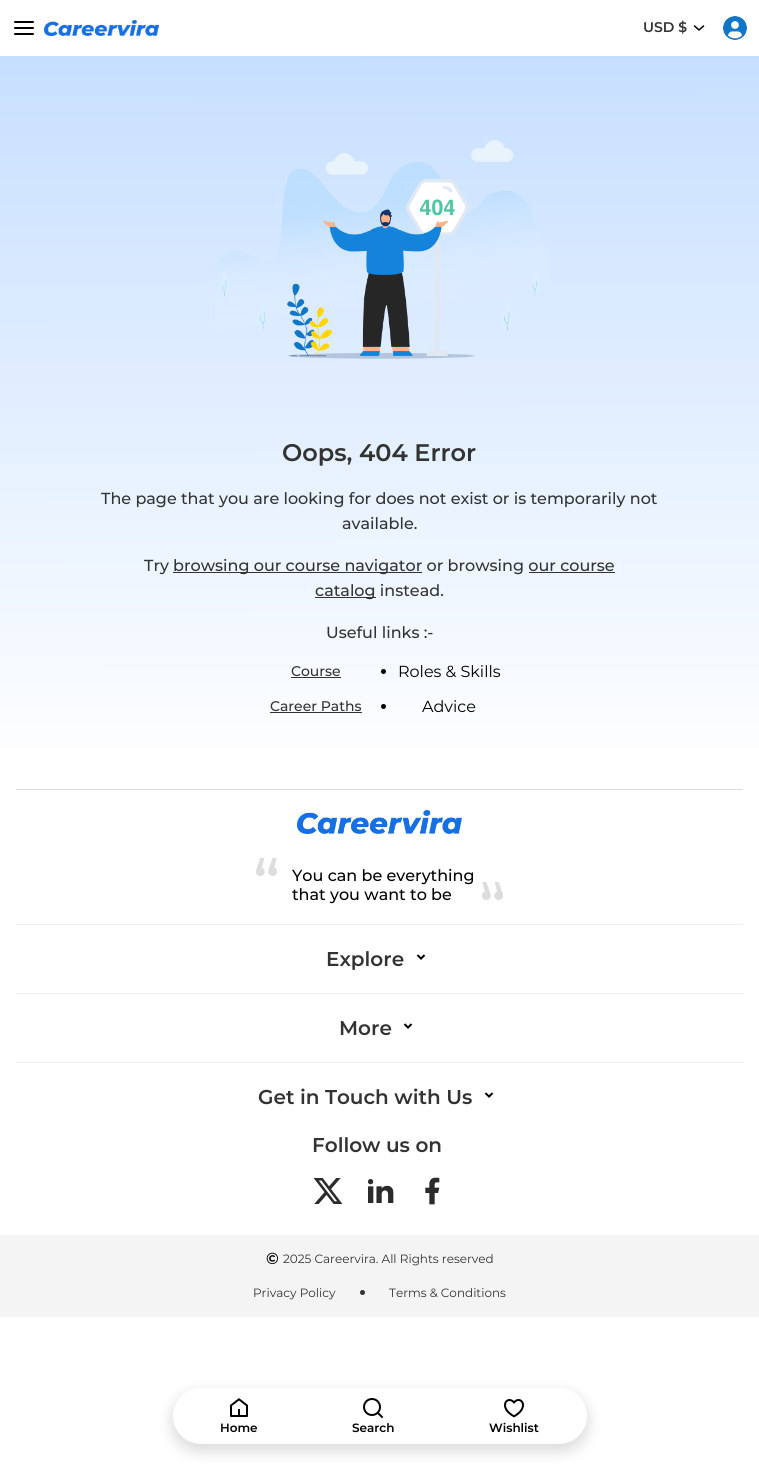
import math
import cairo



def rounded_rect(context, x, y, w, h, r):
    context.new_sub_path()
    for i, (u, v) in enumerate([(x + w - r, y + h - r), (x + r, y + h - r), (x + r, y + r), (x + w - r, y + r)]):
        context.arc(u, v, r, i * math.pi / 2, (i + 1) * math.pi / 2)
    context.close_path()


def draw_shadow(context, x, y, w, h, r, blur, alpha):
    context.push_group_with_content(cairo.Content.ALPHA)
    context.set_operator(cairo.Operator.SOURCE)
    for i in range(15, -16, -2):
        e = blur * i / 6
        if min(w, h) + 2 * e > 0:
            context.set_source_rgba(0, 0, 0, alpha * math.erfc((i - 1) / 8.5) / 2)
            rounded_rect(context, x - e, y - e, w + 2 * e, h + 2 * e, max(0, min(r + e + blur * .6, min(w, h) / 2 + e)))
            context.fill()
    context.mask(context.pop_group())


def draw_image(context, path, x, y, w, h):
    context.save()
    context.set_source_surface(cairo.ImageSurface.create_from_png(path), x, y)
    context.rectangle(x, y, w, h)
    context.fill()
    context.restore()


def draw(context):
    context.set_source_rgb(1, 1, 1)
    context.paint()
    context.new_path()
    context.move_to(15, 28)
    context.line_to(33, 28)
    context.move_to(15, 22)
    context.line_to(33, 22)
    context.move_to(15, 34)
    context.line_to(33, 34)
    context.set_source_rgb(0, 0, 0)
    context.set_line_cap(cairo.LineCap.ROUND)
    context.set_line_join(cairo.LineJoin.ROUND)
    context.stroke()
    draw_image(context, "images/1.png", 44, 20, 115, 16)
    context.new_path()
    context.move_to(694.5, 26)
    context.line_to(699, 30)
    context.line_to(703.5, 26)
    context.set_line_width(1.5)
    context.stroke()
    context.set_source_rgb(235 / 255, 244 / 255, 1)
    context.arc(735, 28, 12, 0, 2 * math.pi)
    context.fill()
    draw_image(context, "images/2.png", 723, 16, 24, 24)
    gradient = cairo.LinearGradient(379, 56, 380, 780)
    gradient.add_color_stop_rgba(0, 199 / 255, 223 / 255, 1, 1)
    gradient.add_color_stop_rgba(1, 1, 1, 1, 1)
    context.set_source(gradient)
    context.rectangle(0, 56, 759, 692)
    context.fill()
    draw_image(context, "images/3.png", 215, 140, 334, 219)
    context.set_source_rgb(51 / 255, 51 / 255, 51 / 255)
    context.rectangle(173, 572, 249, 1)
    context.fill()
    context.rectangle(529, 572, 86, 1)
    context.fill()
    context.rectangle(315, 597, 61, 1)
    context.fill()
    context.rectangle(291, 677, 50, 1)
    context.fill()
    context.set_source_rgb(0, 0, 0)
    context.arc(383.5, 671.5, 2.5, 0, 2 * math.pi)
    context.fill()
    context.set_source_rgb(51 / 255, 51 / 255, 51 / 255)
    context.rectangle(270, 712, 92, 1)
    context.fill()
    context.set_source_rgb(0, 0, 0)
    context.arc(383.5, 706.5, 2.5, 0, 2 * math.pi)
    context.fill()
    context.set_source_rgb(221 / 255, 221 / 255, 221 / 255)
    context.rectangle(16, 789, 727, 1)
    context.fill()
    draw_image(context, "images/4.png", 297, 810, 165, 24)
    draw_image(context, "images/5.png", 256, 858, 21, 18)
    draw_image(context, "images/6.png", 482, 882, 21, 18)
    context.set_source_rgb(237 / 255, 237 / 255, 237 / 255)
    context.rectangle(16, 924, 727, 1)
    context.fill()
    draw_image(context, "images/7.png", 416, 954, 10, 6)
    context.rectangle(16, 993, 727, 1)
    context.fill()
    draw_image(context, "images/7.png", 403, 1023, 10, 6)
    context.rectangle(16, 1062, 727, 1)
    context.fill()
    draw_image(context, "images/7.png", 484, 1092, 10, 6)
    draw_image(context, "images/8.png", 313, 1178, 30, 26)
    draw_image(context, "images/9.png", 367, 1179, 27, 24)
    draw_image(context, "images/10.png", 425, 1177, 15, 28)
    context.set_source_rgb(244 / 255, 244 / 255, 244 / 255)
    context.rectangle(0, 1235, 759, 82)
    context.fill()
    context.set_source_rgb(51 / 255, 51 / 255, 51 / 255)
    context.arc(362.5, 1292.5, 2.5, 0, 2 * math.pi)
    context.fill()
    context.set_source_rgb(0, 0, 0)
    draw_shadow(context, 173, 1394, 414, 56, 28, 8, 0.16)
    context.set_source_rgb(1, 1, 1)
    rounded_rect(context, 173, 1388, 414, 56, 28)
    context.fill()
    draw_image(context, "images/11.png", 230, 1398, 18, 19)
    draw_image(context, "images/12.png", 363, 1398, 21, 21)
    draw_image(context, "images/13.png", 504, 1399, 20, 19)
    context.select_font_face("Montserrat SemiBold")
    context.set_font_size(14)
    context.set_source_rgb(51 / 255, 51 / 255, 51 / 255)
    context.move_to(643, 32)
    context.show_text("USD $")
    context.set_font_size(24)
    context.move_to(282, 461)
    context.show_text("Oops, 404 Error")
    context.select_font_face("Montserrat Medium")
    context.set_font_size(16)
    context.move_to(101, 504)
    context.show_text("The page that you are looking for does not exist or is temporarily not")
    context.move_to(342, 529)
    context.show_text("available.")
    context.move_to(144, 571)
    context.show_text("Try")
    context.move_to(173, 571)
    context.show_text("browsing our course navigator or browsing our course")
    context.move_to(315, 596)
    context.show_text("catalog instead.")
    context.move_to(326, 638)
    context.show_text("Useful links :-")
    context.set_font_size(14)
    context.move_to(291, 676)
    context.show_text("Course")
    context.select_font_face("Montserrat")
    context.set_font_size(16)
    context.set_source_rgb(0, 0, 0)
    context.move_to(398, 677)
    context.show_text("Roles & Skills")
    context.select_font_face("Montserrat Medium")
    context.set_font_size(14)
    context.set_source_rgb(51 / 255, 51 / 255, 51 / 255)
    context.move_to(270, 711)
    context.show_text("Career Paths")
    context.select_font_face("Montserrat")
    context.set_font_size(16)
    context.set_source_rgb(0, 0, 0)
    context.move_to(422, 712)
    context.show_text("Advice")
    context.select_font_face("Montserrat Medium")
    context.move_to(292, 881)
    context.show_text("You can be everything")
    context.move_to(292, 900)
    context.show_text("that you want to be")
    context.select_font_face("Montserrat SemiBold")
    context.set_font_size(20)
    context.set_source_rgb(51 / 255, 51 / 255, 51 / 255)
    context.move_to(326, 966)
    context.show_text("Explore")
    context.move_to(339, 1035)
    context.show_text("More")
    context.move_to(258, 1104)
    context.show_text("Get in Touch with Us")
    context.move_to(312, 1152)
    context.show_text("Follow us on")
    context.set_font_size(16)
    context.set_source_rgb(0, 0, 0)
    context.move_to(266, 1264)
    context.show_text("©")
    context.select_font_face("Montserrat")
    context.set_font_size(12)
    context.set_source_rgb(51 / 255, 51 / 255, 51 / 255)
    context.move_to(283, 1263)
    context.show_text("2025 Careervira. All Rights reserved")
    context.move_to(253, 1297)
    context.show_text("Privacy Policy")
    context.move_to(389, 1297)
    context.show_text("Terms & Conditions")
    context.select_font_face("Montserrat SemiBold")
    context.set_source_rgb(0, 0, 0)
    context.move_to(220, 1432)
    context.show_text("Home")
    context.move_to(352, 1432)
    context.show_text("Search")
    context.move_to(489, 1432)
    context.show_text("Wishlist")


surface = cairo.ImageSurface(cairo.Format.RGB24, 759, 1474)
context = cairo.Context(surface)
options = cairo.FontOptions()
options.set_hint_metrics(cairo.HintMetrics.OFF)
options.set_hint_style(cairo.HintStyle.NONE)
context.set_font_options(options)
context.set_miter_limit(4)
draw(context)
surface.write_to_png("out.png")
